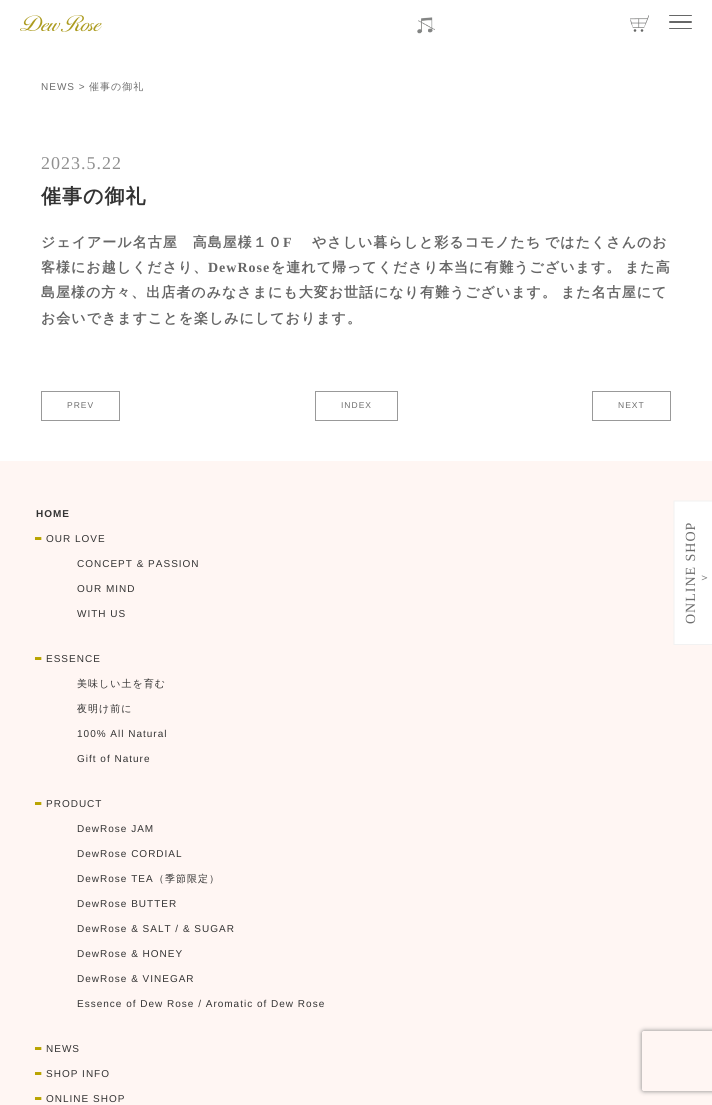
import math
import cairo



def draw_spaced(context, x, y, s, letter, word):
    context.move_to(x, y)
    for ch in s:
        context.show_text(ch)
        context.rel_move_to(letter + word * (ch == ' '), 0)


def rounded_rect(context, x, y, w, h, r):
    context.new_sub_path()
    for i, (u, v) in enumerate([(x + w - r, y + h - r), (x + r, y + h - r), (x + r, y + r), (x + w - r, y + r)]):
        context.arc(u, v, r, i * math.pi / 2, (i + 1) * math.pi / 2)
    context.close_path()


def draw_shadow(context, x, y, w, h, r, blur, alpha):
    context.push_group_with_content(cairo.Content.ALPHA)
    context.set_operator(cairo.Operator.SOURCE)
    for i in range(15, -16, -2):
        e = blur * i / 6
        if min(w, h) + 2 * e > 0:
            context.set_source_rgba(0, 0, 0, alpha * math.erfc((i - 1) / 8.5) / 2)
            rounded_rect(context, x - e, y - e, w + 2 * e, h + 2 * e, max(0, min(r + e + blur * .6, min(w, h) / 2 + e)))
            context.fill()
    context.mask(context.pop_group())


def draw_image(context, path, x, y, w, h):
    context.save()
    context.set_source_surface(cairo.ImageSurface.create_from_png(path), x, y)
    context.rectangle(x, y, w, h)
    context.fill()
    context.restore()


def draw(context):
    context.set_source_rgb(1, 1, 1)
    context.paint()
    draw_image(context, "images/1.png", 20, 15, 82, 17)
    draw_image(context, "images/2.png", 417, 17, 18, 17)
    draw_image(context, "images/3.png", 630, 15, 19, 17)
    context.set_source_rgb(102 / 255, 103 / 255, 103 / 255)
    rounded_rect(context, 669, 28, 23, 1, 0.5)
    context.fill()
    rounded_rect(context, 669, 21, 23, 2, 1)
    context.fill()
    rounded_rect(context, 669, 15, 23, 1, 0.5)
    context.fill()
    context.rectangle(41.5, 391.5, 78, 29)
    context.set_source_rgb(153 / 255, 153 / 255, 153 / 255)
    context.set_line_width(1)
    context.stroke()
    context.rectangle(315.5, 391.5, 82, 29)
    context.stroke()
    context.rectangle(592.5, 391.5, 78, 29)
    context.stroke()
    context.set_source_rgb(1, 246 / 255, 243 / 255)
    context.rectangle(0, 461, 712, 644)
    context.fill()
    context.set_source_rgb(1, 1, 1)
    context.rectangle(674, 501, 38, 143)
    context.fill()
    context.new_path()
    context.move_to(674, 644.5)
    context.line_to(674, 501)
    context.line_to(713.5, 501)
    context.line_to(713.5, 644.5)
    context.close_path()
    context.set_source_rgb(242 / 255, 242 / 255, 242 / 255)
    context.stroke()
    context.save()
    context.set_fill_rule(cairo.FillRule.EVEN_ODD)
    context.new_path()
    context.move_to(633, 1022)
    context.line_to(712, 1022)
    context.line_to(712, 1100)
    context.line_to(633, 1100)
    context.close_path()
    context.move_to(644, 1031)
    context.line_to(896, 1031)
    context.curve_to(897, 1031, 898, 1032, 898, 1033)
    context.line_to(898, 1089)
    context.curve_to(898, 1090, 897, 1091, 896, 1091)
    context.line_to(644, 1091)
    context.curve_to(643, 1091, 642, 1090, 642, 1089)
    context.line_to(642, 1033)
    context.curve_to(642, 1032, 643, 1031, 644, 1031)
    context.close_path()
    context.clip()
    context.set_source_rgb(128 / 255, 128 / 255, 128 / 255)
    draw_shadow(context, 642, 1031, 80, 60, 2, 2.5, 1)
    context.restore()
    context.select_font_face("Liberation Sans")
    context.set_font_size(10)
    context.set_source_rgb(109 / 255, 109 / 255, 109 / 255)
    draw_spaced(context, 41, 90, "NEWS >", 1, 0)
    context.select_font_face("WenQuanYi Zen Hei Medium")
    draw_spaced(context, 89, 90, "催事の御礼", 1, 0)
    context.select_font_face("Liberation Serif")
    context.set_font_size(18)
    context.set_source_rgb(144 / 255, 144 / 255, 144 / 255)
    draw_spaced(context, 41, 169, "2023.5.22", 1, 0)
    context.select_font_face("WenQuanYi Zen Hei", cairo.FontSlant.NORMAL, cairo.FontWeight.BOLD)
    context.set_font_size(20)
    context.set_source_rgb(51 / 255, 51 / 255, 51 / 255)
    draw_spaced(context, 41, 203, "催事の御礼", 1, 0)
    context.set_font_size(14)
    context.set_source_rgb(102 / 255, 102 / 255, 102 / 255)
    draw_spaced(context, 41, 247, "ジェイアール名古屋　高島屋様１０", 1, 0)
    context.select_font_face("Liberation Serif", cairo.FontSlant.NORMAL, cairo.FontWeight.BOLD)
    draw_spaced(context, 283, 247, "F", 1, 0)
    context.select_font_face("WenQuanYi Zen Hei", cairo.FontSlant.NORMAL, cairo.FontWeight.BOLD)
    draw_spaced(context, 312, 247, "やさしい暮らしと彩るコモノたち", 1, 0)
    draw_spaced(context, 545, 247, "ではたくさんのお", 1, 0)
    draw_spaced(context, 41, 272, "客様にお越しくださり、", 1, 0)
    context.select_font_face("Liberation Serif", cairo.FontSlant.NORMAL, cairo.FontWeight.BOLD)
    draw_spaced(context, 208, 272, "DewRose", 1, 0)
    context.select_font_face("WenQuanYi Zen Hei", cairo.FontSlant.NORMAL, cairo.FontWeight.BOLD)
    draw_spaced(context, 271, 272, "を連れて帰ってくださり本当に有難うございます。", 1, 0)
    draw_spaced(context, 625, 272, "また高", 1, 0)
    draw_spaced(context, 41, 297, "島屋様の方々、出店者のみなさまにも大変お世話になり有難うございます。", 1, 0)
    draw_spaced(context, 561, 297, "また名古屋にて", 1, 0)
    draw_spaced(context, 41, 323, "お会いできますことを楽しみにしております。", 1, 0)
    context.select_font_face("Liberation Sans")
    context.set_font_size(8.5)
    context.set_source_rgb(109 / 255, 109 / 255, 109 / 255)
    draw_spaced(context, 67, 408, "PREV", 1, 0)
    draw_spaced(context, 341, 408, "INDEX", 1, 0)
    draw_spaced(context, 618, 408, "NEXT", 1, 0)
    context.select_font_face("Liberation Sans", cairo.FontSlant.NORMAL, cairo.FontWeight.BOLD)
    context.set_font_size(10)
    context.set_source_rgb(51 / 255, 51 / 255, 51 / 255)
    draw_spaced(context, 36, 517, "HOME", 1, 0)
    context.set_font_size(25)
    context.set_source_rgb(185 / 255, 164 / 255, 0)
    draw_spaced(context, 34, 545, "-", 1, 0)
    context.select_font_face("Liberation Sans")
    context.set_font_size(10)
    context.set_source_rgb(51 / 255, 51 / 255, 51 / 255)
    draw_spaced(context, 46, 542, "OUR LOVE", 1, 0)
    draw_spaced(context, 77, 567, "CONCEPT & PASSION", 1, 0)
    draw_spaced(context, 77, 592, "OUR MIND", 1, 0)
    draw_spaced(context, 77, 617, "WITH US", 1, 0)
    context.select_font_face("Liberation Sans", cairo.FontSlant.NORMAL, cairo.FontWeight.BOLD)
    context.set_font_size(25)
    context.set_source_rgb(185 / 255, 164 / 255, 0)
    draw_spaced(context, 34, 665, "-", 1, 0)
    context.select_font_face("Liberation Sans")
    context.set_font_size(10)
    context.set_source_rgb(51 / 255, 51 / 255, 51 / 255)
    draw_spaced(context, 46, 662, "ESSENCE", 1, 0)
    context.select_font_face("WenQuanYi Zen Hei Medium")
    draw_spaced(context, 77, 687, "美味しい土を育む", 1, 0)
    draw_spaced(context, 77, 712, "夜明け前に", 1, 0)
    context.select_font_face("Liberation Sans")
    draw_spaced(context, 77, 737, "100% All Natural", 1, 0)
    draw_spaced(context, 77, 762, "Gift of Nature", 1, 0)
    context.select_font_face("Liberation Sans", cairo.FontSlant.NORMAL, cairo.FontWeight.BOLD)
    context.set_font_size(25)
    context.set_source_rgb(185 / 255, 164 / 255, 0)
    draw_spaced(context, 34, 810, "-", 1, 0)
    context.select_font_face("Liberation Sans")
    context.set_font_size(10)
    context.set_source_rgb(51 / 255, 51 / 255, 51 / 255)
    draw_spaced(context, 46, 807, "PRODUCT", 1, 0)
    draw_spaced(context, 77, 832, "DewRose JAM", 1, 0)
    draw_spaced(context, 77, 857, "DewRose CORDIAL", 1, 0)
    draw_spaced(context, 77, 882, "DewRose TEA", 1, 0)
    context.select_font_face("WenQuanYi Zen Hei Medium")
    draw_spaced(context, 154, 882, "（季節限定）", 1, 0)
    context.select_font_face("Liberation Sans")
    draw_spaced(context, 77, 907, "DewRose BUTTER", 1, 0)
    draw_spaced(context, 77, 932, "DewRose & SALT / & SUGAR", 1, 0)
    draw_spaced(context, 77, 957, "DewRose & HONEY", 1, 0)
    draw_spaced(context, 77, 982, "DewRose & VINEGAR", 1, 0)
    draw_spaced(context, 77, 1007, "Essence of Dew Rose / Aromatic of Dew Rose", 1, 0)
    context.select_font_face("Liberation Sans", cairo.FontSlant.NORMAL, cairo.FontWeight.BOLD)
    context.set_font_size(25)
    context.set_source_rgb(185 / 255, 164 / 255, 0)
    draw_spaced(context, 34, 1055, "-", 1, 0)
    context.select_font_face("Liberation Sans")
    context.set_font_size(10)
    context.set_source_rgb(51 / 255, 51 / 255, 51 / 255)
    draw_spaced(context, 46, 1052, "NEWS", 1, 0)
    context.select_font_face("Liberation Sans", cairo.FontSlant.NORMAL, cairo.FontWeight.BOLD)
    context.set_font_size(25)
    context.set_source_rgb(185 / 255, 164 / 255, 0)
    draw_spaced(context, 34, 1080, "-", 1, 0)
    context.select_font_face("Liberation Sans")
    context.set_font_size(10)
    context.set_source_rgb(51 / 255, 51 / 255, 51 / 255)
    draw_spaced(context, 46, 1077, "SHOP INFO", 1, 0)
    context.select_font_face("Liberation Sans", cairo.FontSlant.NORMAL, cairo.FontWeight.BOLD)
    context.set_font_size(25)
    context.set_source_rgb(185 / 255, 164 / 255, 0)
    draw_spaced(context, 34, 1105, "-", 1, 0)
    context.select_font_face("Liberation Sans")
    context.set_font_size(10)
    context.set_source_rgb(51 / 255, 51 / 255, 51 / 255)
    draw_spaced(context, 46, 1102, "ONLINE SHOP", 1, 0)
    context.select_font_face("Liberation Serif")
    context.set_font_size(14)
    context.set_source_rgb(109 / 255, 109 / 255, 109 / 255)
    context.save()
    context.translate(695, 624)
    context.rotate(-90 * math.pi / 180)
    draw_spaced(context, 0, 0, "ONLINE SHOP", 1, 0)
    context.restore()
    context.select_font_face("WenQuanYi Zen Hei Medium")
    context.set_font_size(11)
    draw_spaced(context, 699, 581, "＞", 1, 0)


surface = cairo.ImageSurface(cairo.Format.RGB24, 712, 1105)
context = cairo.Context(surface)
options = cairo.FontOptions()
options.set_hint_metrics(cairo.HintMetrics.OFF)
options.set_hint_style(cairo.HintStyle.NONE)
context.set_font_options(options)
context.set_miter_limit(4)
draw(context)
surface.write_to_png("out.png")
